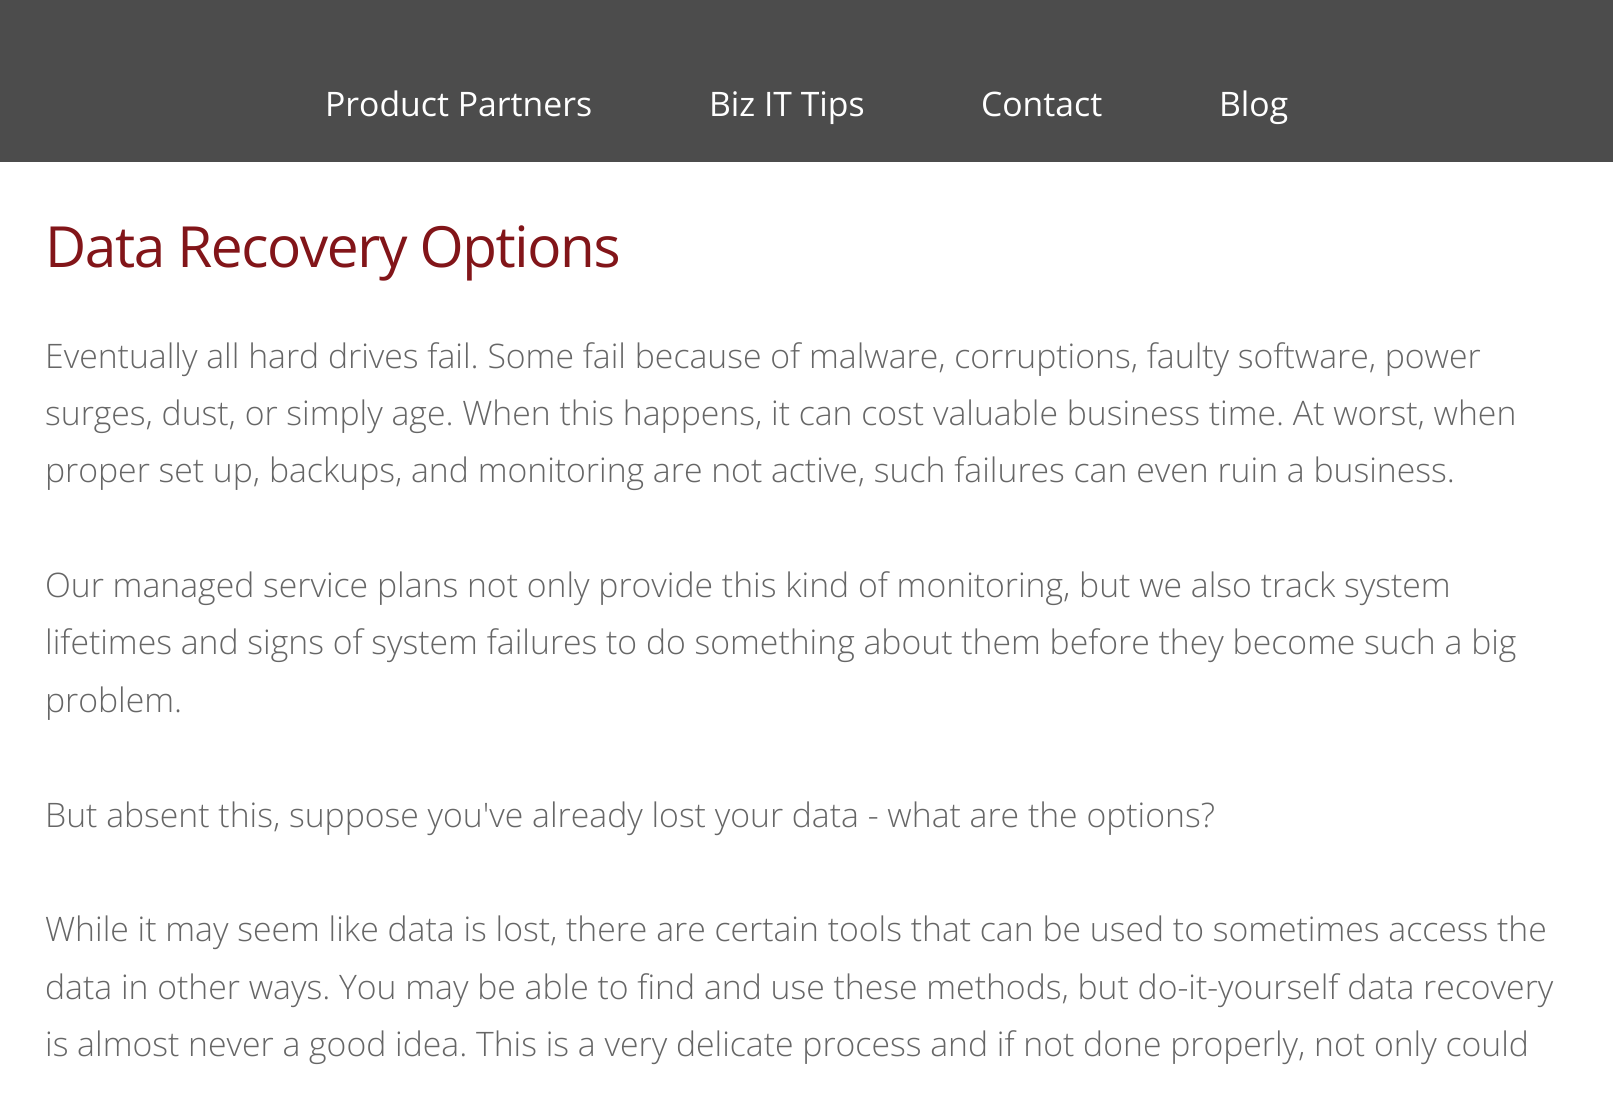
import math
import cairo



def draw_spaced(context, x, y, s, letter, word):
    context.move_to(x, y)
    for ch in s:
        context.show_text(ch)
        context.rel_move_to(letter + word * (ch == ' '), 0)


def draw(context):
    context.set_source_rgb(1, 1, 1)
    context.paint()
    context.set_source_rgb(76 / 255, 76 / 255, 76 / 255)
    context.rectangle(0, 0, 1613, 162)
    context.fill()
    context.select_font_face("Open Sans")
    context.set_font_size(33.75)
    context.set_source_rgb(1, 1, 1)
    context.move_to(325, 116)
    context.show_text("Product Partners")
    context.move_to(709, 116)
    context.show_text("Biz IT Tips")
    context.move_to(981, 116)
    context.show_text("Contact")
    context.move_to(1219, 116)
    context.show_text("Blog")
    context.set_font_size(56.75)
    context.set_source_rgb(130 / 255, 21 / 255, 25 / 255)
    draw_spaced(context, 45, 267, "Data Recovery Options", -1.4, 0)
    context.select_font_face("Open Sans Light")
    context.set_font_size(33.75)
    context.set_source_rgb(102 / 255, 102 / 255, 102 / 255)
    context.move_to(45, 368)
    context.show_text("Eventually all hard drives fail. Some fail because of malware, corruptions, faulty software, power")
    context.move_to(45, 425)
    context.show_text("surges, dust, or simply age. When this happens, it can cost valuable business time. At worst, when")
    context.move_to(45, 482)
    context.show_text("proper set up, backups, and monitoring are not active, such failures can even ruin a business.")
    context.move_to(45, 597)
    context.show_text("Our managed service plans not only provide this kind of monitoring, but we also track system")
    context.move_to(45, 654)
    context.show_text("lifetimes and signs of system failures to do something about them before they become such a big")
    context.move_to(45, 712)
    context.show_text("problem.")
    context.move_to(45, 827)
    context.show_text("But absent this, suppose you've already lost your data - what are the options?")
    context.move_to(45, 941)
    context.show_text("While it may seem like data is lost, there are certain tools that can be used to sometimes access the")
    context.move_to(45, 999)
    context.show_text("data in other ways. You may be able to find and use these methods, but do-it-yourself data recovery")
    context.move_to(45, 1056)
    context.show_text("is almost never a good idea. This is a very delicate process and if not done properly, not only could")


surface = cairo.ImageSurface(cairo.Format.RGB24, 1613, 1103)
context = cairo.Context(surface)
options = cairo.FontOptions()
options.set_hint_metrics(cairo.HintMetrics.OFF)
options.set_hint_style(cairo.HintStyle.NONE)
context.set_font_options(options)
context.set_miter_limit(4)
draw(context)
surface.write_to_png("out.png")
